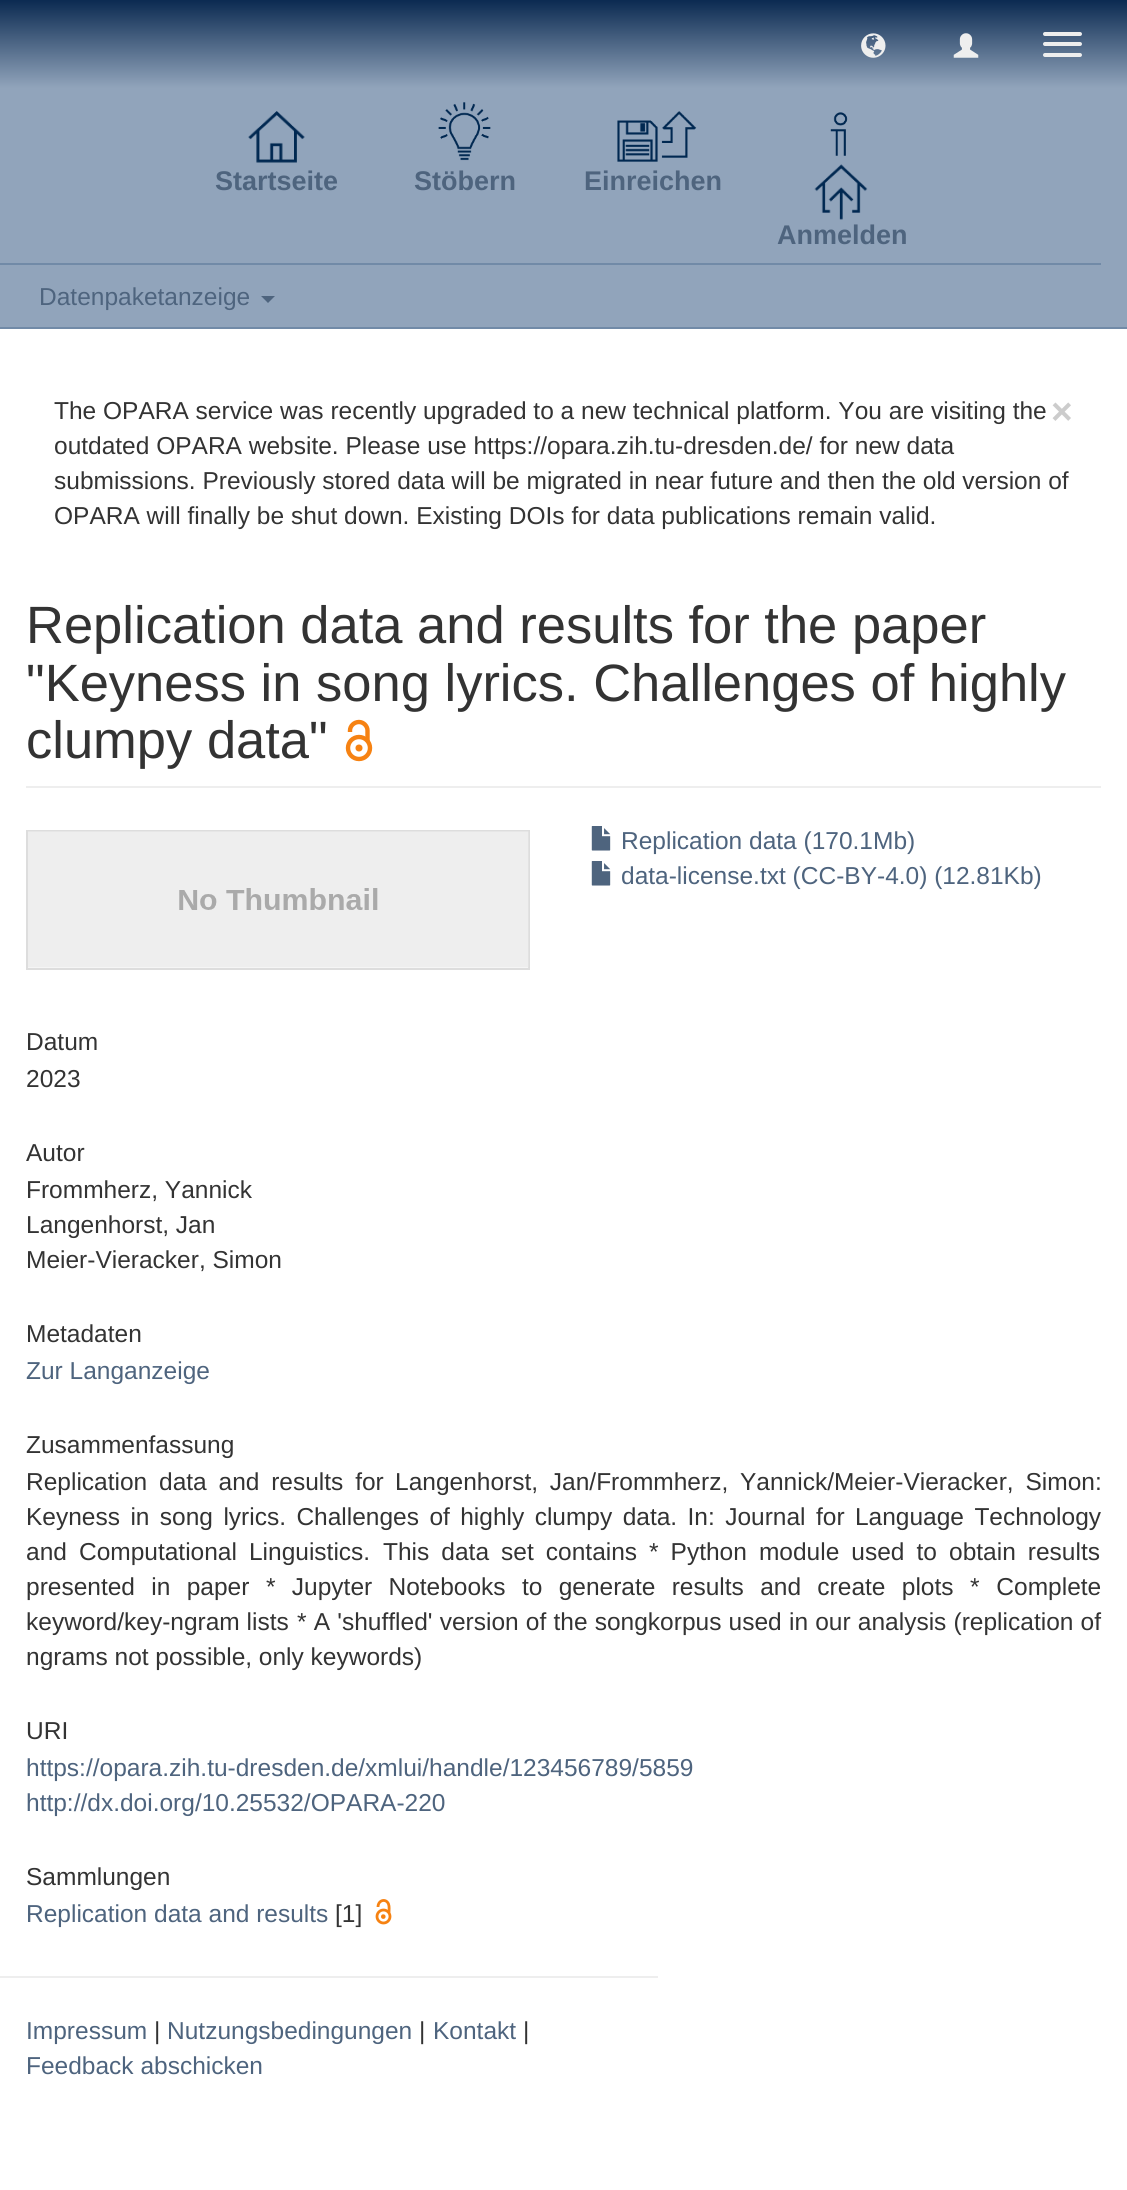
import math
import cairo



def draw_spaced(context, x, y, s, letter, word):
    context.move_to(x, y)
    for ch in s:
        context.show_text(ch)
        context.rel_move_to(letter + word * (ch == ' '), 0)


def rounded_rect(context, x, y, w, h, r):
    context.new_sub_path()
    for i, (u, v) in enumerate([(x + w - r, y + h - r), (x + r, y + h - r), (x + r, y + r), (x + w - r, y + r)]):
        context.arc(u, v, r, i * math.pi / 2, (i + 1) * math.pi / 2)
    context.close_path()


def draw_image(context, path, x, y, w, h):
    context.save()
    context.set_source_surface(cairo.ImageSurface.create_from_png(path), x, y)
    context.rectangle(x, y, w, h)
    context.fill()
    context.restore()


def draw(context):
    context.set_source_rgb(1, 1, 1)
    context.paint()
    gradient = cairo.LinearGradient(564, 0, 564, 88)
    gradient.add_color_stop_rgba(0, 11 / 255, 42 / 255, 81 / 255, 1)
    gradient.add_color_stop_rgba(1, 145 / 255, 164 / 255, 187 / 255, 1)
    context.set_source(gradient)
    context.rectangle(0, 0, 1127, 88)
    context.fill()
    draw_image(context, "images/1.png", 861, 33, 25, 25)
    draw_image(context, "images/2.png", 953, 33, 26, 25)
    context.set_source_rgb(238 / 255, 238 / 255, 238 / 255)
    rounded_rect(context, 1043, 32, 39, 4, 2)
    context.fill()
    rounded_rect(context, 1043, 42, 39, 4, 2)
    context.fill()
    rounded_rect(context, 1043, 53, 39, 4, 2)
    context.fill()
    context.set_source_rgb(145 / 255, 164 / 255, 187 / 255)
    context.rectangle(0, 88, 1127, 239)
    context.fill()
    context.set_source_rgb(113 / 255, 138 / 255, 167 / 255)
    context.rectangle(0, 327, 1127, 2)
    context.fill()
    draw_image(context, "images/3.png", 830, 112, 18, 44)
    draw_image(context, "images/4.png", 248, 111, 57, 52)
    draw_image(context, "images/5.png", 438, 102, 53, 59)
    draw_image(context, "images/6.png", 617, 111, 80, 51)
    draw_image(context, "images/7.png", 814, 164, 54, 56)
    context.rectangle(0, 263, 1101, 2)
    context.fill()
    context.set_source_rgb(78 / 255, 100 / 255, 126 / 255)
    context.new_path()
    context.move_to(261, 296)
    context.line_to(275, 296)
    context.line_to(268, 303)
    context.close_path()
    context.fill()
    context.set_source_rgb(238 / 255, 238 / 255, 238 / 255)
    context.rectangle(26, 786, 1075, 2)
    context.fill()
    context.new_path()
    context.move_to(350, 732)
    context.line_to(350, 730.5)
    context.curve_to(350, 726, 354, 722, 359, 722)
    context.curve_to(363.5, 722, 367.5, 726, 367.5, 730.5)
    context.line_to(367.5, 741.5)
    context.set_source_rgb(246 / 255, 130 / 255, 18 / 255)
    context.set_line_width(4.4)
    context.stroke()
    context.arc(359, 748, 11, 0, 2 * math.pi)
    context.stroke()
    context.arc(359, 748, 3.5, 0, 2 * math.pi)
    context.fill()
    context.rectangle(27, 831, 502, 138)
    context.set_source_rgb(221 / 255, 221 / 255, 221 / 255)
    context.set_line_width(2)
    context.stroke()
    draw_image(context, "images/8.png", 28, 831, 501, 137)
    draw_image(context, "images/9.png", 591, 826, 20, 25)
    draw_image(context, "images/9.png", 591, 861, 20, 25)
    context.new_path()
    context.move_to(378, 1907)
    context.curve_to(378, 1900, 386, 1898, 388.5, 1904)
    context.curve_to(389.5, 1906.5, 389, 1910, 389, 1912.5)
    context.set_source_rgb(246 / 255, 130 / 255, 18 / 255)
    context.set_line_width(2.8)
    context.stroke()
    context.arc(383.5, 1916.5, 6.5, 0, 2 * math.pi)
    context.stroke()
    context.arc(383.3, 1916.6, 2.3, 0, 2 * math.pi)
    context.fill()
    context.set_source_rgb(238 / 255, 238 / 255, 238 / 255)
    context.rectangle(0, 1976, 658, 2)
    context.fill()
    context.select_font_face("Liberation Sans", cairo.FontSlant.NORMAL, cairo.FontWeight.BOLD)
    context.set_font_size(27)
    context.set_source_rgb(78 / 255, 100 / 255, 126 / 255)
    context.move_to(215, 190)
    context.show_text("Startseite")
    context.move_to(414, 190)
    context.show_text("Stöbern")
    context.move_to(584, 190)
    context.show_text("Einreichen")
    context.move_to(777, 244)
    context.show_text("Anmelden")
    context.select_font_face("Liberation Sans")
    context.set_font_size(24.5)
    context.move_to(39, 305)
    context.show_text("Datenpaketanzeige")
    context.set_source_rgb(51 / 255, 51 / 255, 51 / 255)
    context.move_to(54, 419)
    context.show_text("The OPARA service was recently upgraded to a new technical platform. You are visiting the")
    context.select_font_face("Liberation Sans", cairo.FontSlant.NORMAL, cairo.FontWeight.BOLD)
    context.set_font_size(37)
    context.set_source_rgb(204 / 255, 204 / 255, 204 / 255)
    context.move_to(1051, 424)
    context.show_text("×")
    context.select_font_face("Liberation Sans")
    context.set_font_size(24.5)
    context.set_source_rgb(51 / 255, 51 / 255, 51 / 255)
    context.move_to(54, 454)
    context.show_text("outdated OPARA website. Please use https://opara.zih.tu-dresden.de/ for new data")
    context.move_to(54, 489)
    context.show_text("submissions. Previously stored data will be migrated in near future and then the old version of")
    context.move_to(54, 524)
    context.show_text("OPARA will finally be shut down. Existing DOIs for data publications remain valid.")
    context.set_font_size(52.5)
    context.move_to(26, 643)
    context.show_text("Replication data and results for the paper")
    context.move_to(26, 701)
    context.show_text("\"Keyness in song lyrics. Challenges of highly")
    context.move_to(26, 758)
    context.show_text("clumpy data\"")
    context.set_font_size(24.5)
    context.set_source_rgb(78 / 255, 100 / 255, 126 / 255)
    context.move_to(621, 849)
    context.show_text("Replication data (170.1Mb)")
    context.move_to(621, 884)
    context.show_text("data-license.txt (CC-BY-4.0) (12.81Kb)")
    context.set_source_rgb(51 / 255, 51 / 255, 51 / 255)
    context.move_to(26, 1050)
    context.show_text("Datum")
    context.move_to(26, 1087)
    context.show_text("2023")
    context.move_to(26, 1161)
    context.show_text("Autor")
    context.move_to(26, 1198)
    context.show_text("Frommherz, Yannick")
    context.move_to(26, 1233)
    context.show_text("Langenhorst, Jan")
    context.move_to(26, 1268)
    context.show_text("Meier-Vieracker, Simon")
    context.move_to(26, 1342)
    context.show_text("Metadaten")
    context.set_source_rgb(78 / 255, 100 / 255, 126 / 255)
    context.move_to(26, 1379)
    context.show_text("Zur Langanzeige")
    context.set_source_rgb(51 / 255, 51 / 255, 51 / 255)
    context.move_to(26, 1453)
    context.show_text("Zusammenfassung")
    draw_spaced(context, 26, 1490, "Replication data and results for", 0, 5)
    draw_spaced(context, 395, 1490, "Langenhorst, Jan/Frommherz, Yannick/Meier-Vieracker, Simon:", 0, 5)
    draw_spaced(context, 26, 1525, "Keyness in song lyrics. Challenges of highly clumpy data. In: Journal for Language Technology", 0, 3.6)
    draw_spaced(context, 26, 1560, "and Computational Linguistics.", 0, 5.25)
    draw_spaced(context, 383, 1560, "This data set contains", 0, 5.25)
    draw_spaced(context, 649, 1560, "* Python module used to obtain results", 0, 5.25)
    draw_spaced(context, 26, 1595, "presented in paper", 0, 9.5)
    draw_spaced(context, 266, 1595, "* Jupyter Notebooks to generate results and create plots", 0, 9.5)
    draw_spaced(context, 970, 1595, "* Complete", 0, 10)
    context.move_to(26, 1630)
    context.show_text("keyword/key-ngram lists")
    draw_spaced(context, 297, 1630, "* A 'shuffled' version of the songkorpus used in our analysis (replication of", 0, 0.4)
    context.move_to(26, 1665)
    context.show_text("ngrams not possible, only keywords)")
    context.move_to(26, 1739)
    context.show_text("URI")
    context.set_source_rgb(78 / 255, 100 / 255, 126 / 255)
    context.move_to(26, 1776)
    context.show_text("https://opara.zih.tu-dresden.de/xmlui/handle/123456789/5859")
    context.move_to(26, 1811)
    context.show_text("http://dx.doi.org/10.25532/OPARA-220")
    context.set_source_rgb(51 / 255, 51 / 255, 51 / 255)
    context.move_to(26, 1885)
    context.show_text("Sammlungen")
    context.set_source_rgb(78 / 255, 100 / 255, 126 / 255)
    context.move_to(26, 1922)
    context.show_text("Replication data and results")
    context.set_source_rgb(51 / 255, 51 / 255, 51 / 255)
    context.move_to(335, 1922)
    context.show_text("[1]")
    context.set_source_rgb(78 / 255, 100 / 255, 126 / 255)
    context.move_to(26, 2039)
    context.show_text("Impressum")
    context.set_source_rgb(51 / 255, 51 / 255, 51 / 255)
    context.move_to(154, 2039)
    context.show_text("|")
    context.set_source_rgb(78 / 255, 100 / 255, 126 / 255)
    context.move_to(167, 2039)
    context.show_text("Nutzungsbedingungen")
    context.set_source_rgb(51 / 255, 51 / 255, 51 / 255)
    context.move_to(419, 2039)
    context.show_text("|")
    context.set_source_rgb(78 / 255, 100 / 255, 126 / 255)
    context.move_to(433, 2039)
    context.show_text("Kontakt")
    context.set_source_rgb(51 / 255, 51 / 255, 51 / 255)
    context.move_to(523, 2039)
    context.show_text("|")
    context.set_source_rgb(78 / 255, 100 / 255, 126 / 255)
    context.move_to(26, 2074)
    context.show_text("Feedback abschicken")


surface = cairo.ImageSurface(cairo.Format.RGB24, 1127, 2190)
context = cairo.Context(surface)
options = cairo.FontOptions()
options.set_hint_metrics(cairo.HintMetrics.OFF)
options.set_hint_style(cairo.HintStyle.NONE)
context.set_font_options(options)
context.set_miter_limit(4)
draw(context)
surface.write_to_png("out.png")
